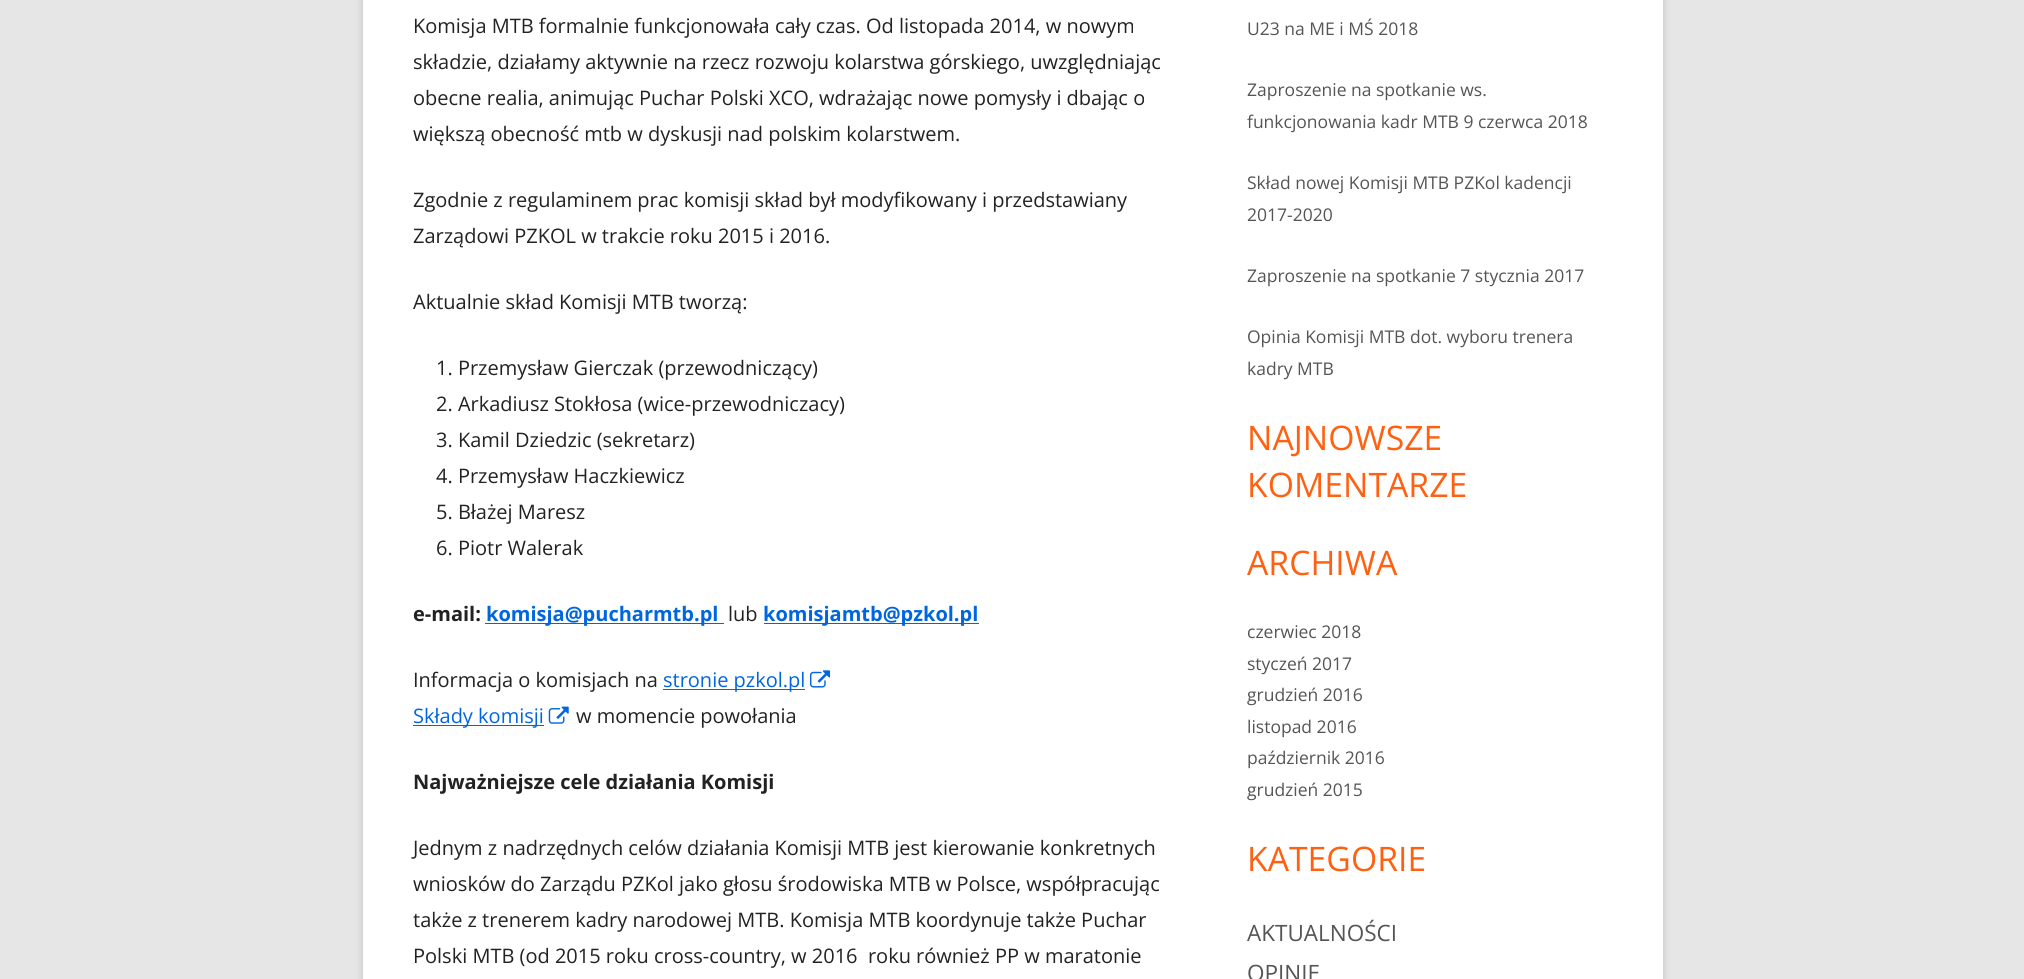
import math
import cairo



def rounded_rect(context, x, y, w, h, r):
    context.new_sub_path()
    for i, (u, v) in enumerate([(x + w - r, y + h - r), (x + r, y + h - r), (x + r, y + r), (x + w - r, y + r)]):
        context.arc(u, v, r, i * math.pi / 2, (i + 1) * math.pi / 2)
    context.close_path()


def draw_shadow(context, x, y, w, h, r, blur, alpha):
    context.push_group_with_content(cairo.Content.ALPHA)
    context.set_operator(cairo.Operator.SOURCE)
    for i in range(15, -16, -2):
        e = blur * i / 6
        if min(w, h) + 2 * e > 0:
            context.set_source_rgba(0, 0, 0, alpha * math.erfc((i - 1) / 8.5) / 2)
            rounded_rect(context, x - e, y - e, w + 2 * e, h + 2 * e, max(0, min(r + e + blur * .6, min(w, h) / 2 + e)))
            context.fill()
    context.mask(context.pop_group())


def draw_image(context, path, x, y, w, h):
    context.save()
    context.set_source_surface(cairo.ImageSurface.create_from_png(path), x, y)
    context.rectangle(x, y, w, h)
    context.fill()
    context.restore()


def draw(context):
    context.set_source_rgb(230 / 255, 230 / 255, 230 / 255)
    context.paint()
    context.set_source_rgb(100 / 255, 100 / 255, 100 / 255)
    draw_shadow(context, 363, -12, 1300, 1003, 0, 4, 0.3)
    context.set_source_rgb(1, 1, 1)
    context.rectangle(363, 0, 1300, 979)
    context.fill()
    context.set_source_rgb(0, 102 / 255, 223 / 255)
    context.rectangle(485, 623, 239, 1)
    context.fill()
    context.rectangle(764, 623, 215, 1)
    context.fill()
    context.rectangle(663, 689, 142, 1)
    context.fill()
    draw_image(context, "images/1.png", 810, 670, 20, 18)
    context.rectangle(413, 725, 131, 1)
    context.fill()
    draw_image(context, "images/2.png", 548, 706, 21, 18)
    context.select_font_face("Open Sans")
    context.set_font_size(20)
    context.set_source_rgb(34 / 255, 34 / 255, 34 / 255)
    context.move_to(413, 33)
    context.show_text("Komisja MTB formalnie funkcjonowała cały czas. Od listopada 2014, w nowym")
    context.move_to(413, 69)
    context.show_text("składzie, działamy aktywnie na rzecz rozwoju kolarstwa górskiego, uwzględniając")
    context.move_to(413, 105)
    context.show_text("obecne realia, animując Puchar Polski XCO, wdrażając nowe pomysły i dbając o")
    context.move_to(413, 141)
    context.show_text("większą obecność mtb w dyskusji nad polskim kolarstwem.")
    context.move_to(413, 207)
    context.show_text("Zgodnie z regulaminem prac komisji skład był modyfikowany i przedstawiany")
    context.move_to(413, 243)
    context.show_text("Zarządowi PZKOL w trakcie roku 2015 i 2016.")
    context.move_to(413, 309)
    context.show_text("Aktualnie skład Komisji MTB tworzą:")
    context.move_to(436, 375)
    context.show_text("1. Przemysław Gierczak (przewodniczący)")
    context.move_to(436, 411)
    context.show_text("2. Arkadiusz Stokłosa (wice-przewodniczacy)")
    context.move_to(436, 447)
    context.show_text("3. Kamil Dziedzic (sekretarz)")
    context.move_to(436, 483)
    context.show_text("4. Przemysław Haczkiewicz")
    context.move_to(436, 519)
    context.show_text("5. Błażej Maresz")
    context.move_to(436, 555)
    context.show_text("6. Piotr Walerak")
    context.select_font_face("Open Sans", cairo.FontSlant.NORMAL, cairo.FontWeight.BOLD)
    context.move_to(413, 621)
    context.show_text("e-mail:")
    context.set_source_rgb(0, 102 / 255, 223 / 255)
    context.move_to(486, 621)
    context.show_text("komisja@pucharmtb.pl")
    context.select_font_face("Open Sans")
    context.set_source_rgb(34 / 255, 34 / 255, 34 / 255)
    context.move_to(728, 621)
    context.show_text("lub")
    context.select_font_face("Open Sans", cairo.FontSlant.NORMAL, cairo.FontWeight.BOLD)
    context.set_source_rgb(0, 102 / 255, 223 / 255)
    context.move_to(763, 621)
    context.show_text("komisjamtb@pzkol.pl")
    context.select_font_face("Open Sans")
    context.set_source_rgb(34 / 255, 34 / 255, 34 / 255)
    context.move_to(413, 687)
    context.show_text("Informacja o komisjach na")
    context.set_source_rgb(0, 102 / 255, 223 / 255)
    context.move_to(663, 687)
    context.show_text("stronie pzkol.pl")
    context.move_to(413, 723)
    context.show_text("Składy komisji")
    context.set_source_rgb(34 / 255, 34 / 255, 34 / 255)
    context.move_to(576, 723)
    context.show_text("w momencie powołania")
    context.select_font_face("Open Sans", cairo.FontSlant.NORMAL, cairo.FontWeight.BOLD)
    context.move_to(413, 789)
    context.show_text("Najważniejsze cele działania Komisji")
    context.select_font_face("Open Sans")
    context.move_to(413, 855)
    context.show_text("Jednym z nadrzędnych celów działania Komisji MTB jest kierowanie konkretnych")
    context.move_to(413, 891)
    context.show_text("wniosków do Zarządu PZKol jako głosu środowiska MTB w Polsce, współpracując")
    context.move_to(413, 927)
    context.show_text("także z trenerem kadry narodowej MTB. Komisja MTB koordynuje także Puchar")
    context.move_to(413, 963)
    context.show_text("Polski MTB (od 2015 roku cross-country, w 2016  roku również PP w maratonie")
    context.set_font_size(17.5)
    context.set_source_rgb(85 / 255, 85 / 255, 85 / 255)
    context.move_to(1247, 35)
    context.show_text("U23 na ME i MŚ 2018")
    context.move_to(1247, 96)
    context.show_text("Zaproszenie na spotkanie ws.")
    context.move_to(1247, 128)
    context.show_text("funkcjonowania kadr MTB 9 czerwca 2018")
    context.move_to(1247, 189)
    context.show_text("Skład nowej Komisji MTB PZKol kadencji")
    context.move_to(1247, 221)
    context.show_text("2017-2020")
    context.move_to(1247, 282)
    context.show_text("Zaproszenie na spotkanie 7 stycznia 2017")
    context.move_to(1247, 343)
    context.show_text("Opinia Komisji MTB dot. wyboru trenera")
    context.move_to(1247, 375)
    context.show_text("kadry MTB")
    context.set_font_size(33.75)
    context.set_source_rgb(1, 97 / 255, 17 / 255)
    context.move_to(1247, 450)
    context.show_text("NAJNOWSZE")
    context.move_to(1247, 497)
    context.show_text("KOMENTARZE")
    context.move_to(1247, 575)
    context.show_text("ARCHIWA")
    context.set_font_size(17.5)
    context.set_source_rgb(85 / 255, 85 / 255, 85 / 255)
    context.move_to(1247, 638)
    context.show_text("czerwiec 2018")
    context.move_to(1247, 670)
    context.show_text("styczeń 2017")
    context.move_to(1247, 701)
    context.show_text("grudzień 2016")
    context.move_to(1247, 733)
    context.show_text("listopad 2016")
    context.move_to(1247, 764)
    context.show_text("październik 2016")
    context.move_to(1247, 796)
    context.show_text("grudzień 2015")
    context.set_font_size(33.75)
    context.set_source_rgb(1, 97 / 255, 17 / 255)
    context.move_to(1247, 871)
    context.show_text("KATEGORIE")
    context.set_font_size(22.5)
    context.set_source_rgb(85 / 255, 85 / 255, 85 / 255)
    context.move_to(1247, 941)
    context.show_text("AKTUALNOŚCI")
    context.move_to(1247, 981)
    context.show_text("OPINIE")


surface = cairo.ImageSurface(cairo.Format.RGB24, 2024, 979)
context = cairo.Context(surface)
options = cairo.FontOptions()
options.set_hint_metrics(cairo.HintMetrics.OFF)
options.set_hint_style(cairo.HintStyle.NONE)
context.set_font_options(options)
context.set_miter_limit(4)
draw(context)
surface.write_to_png("out.png")
